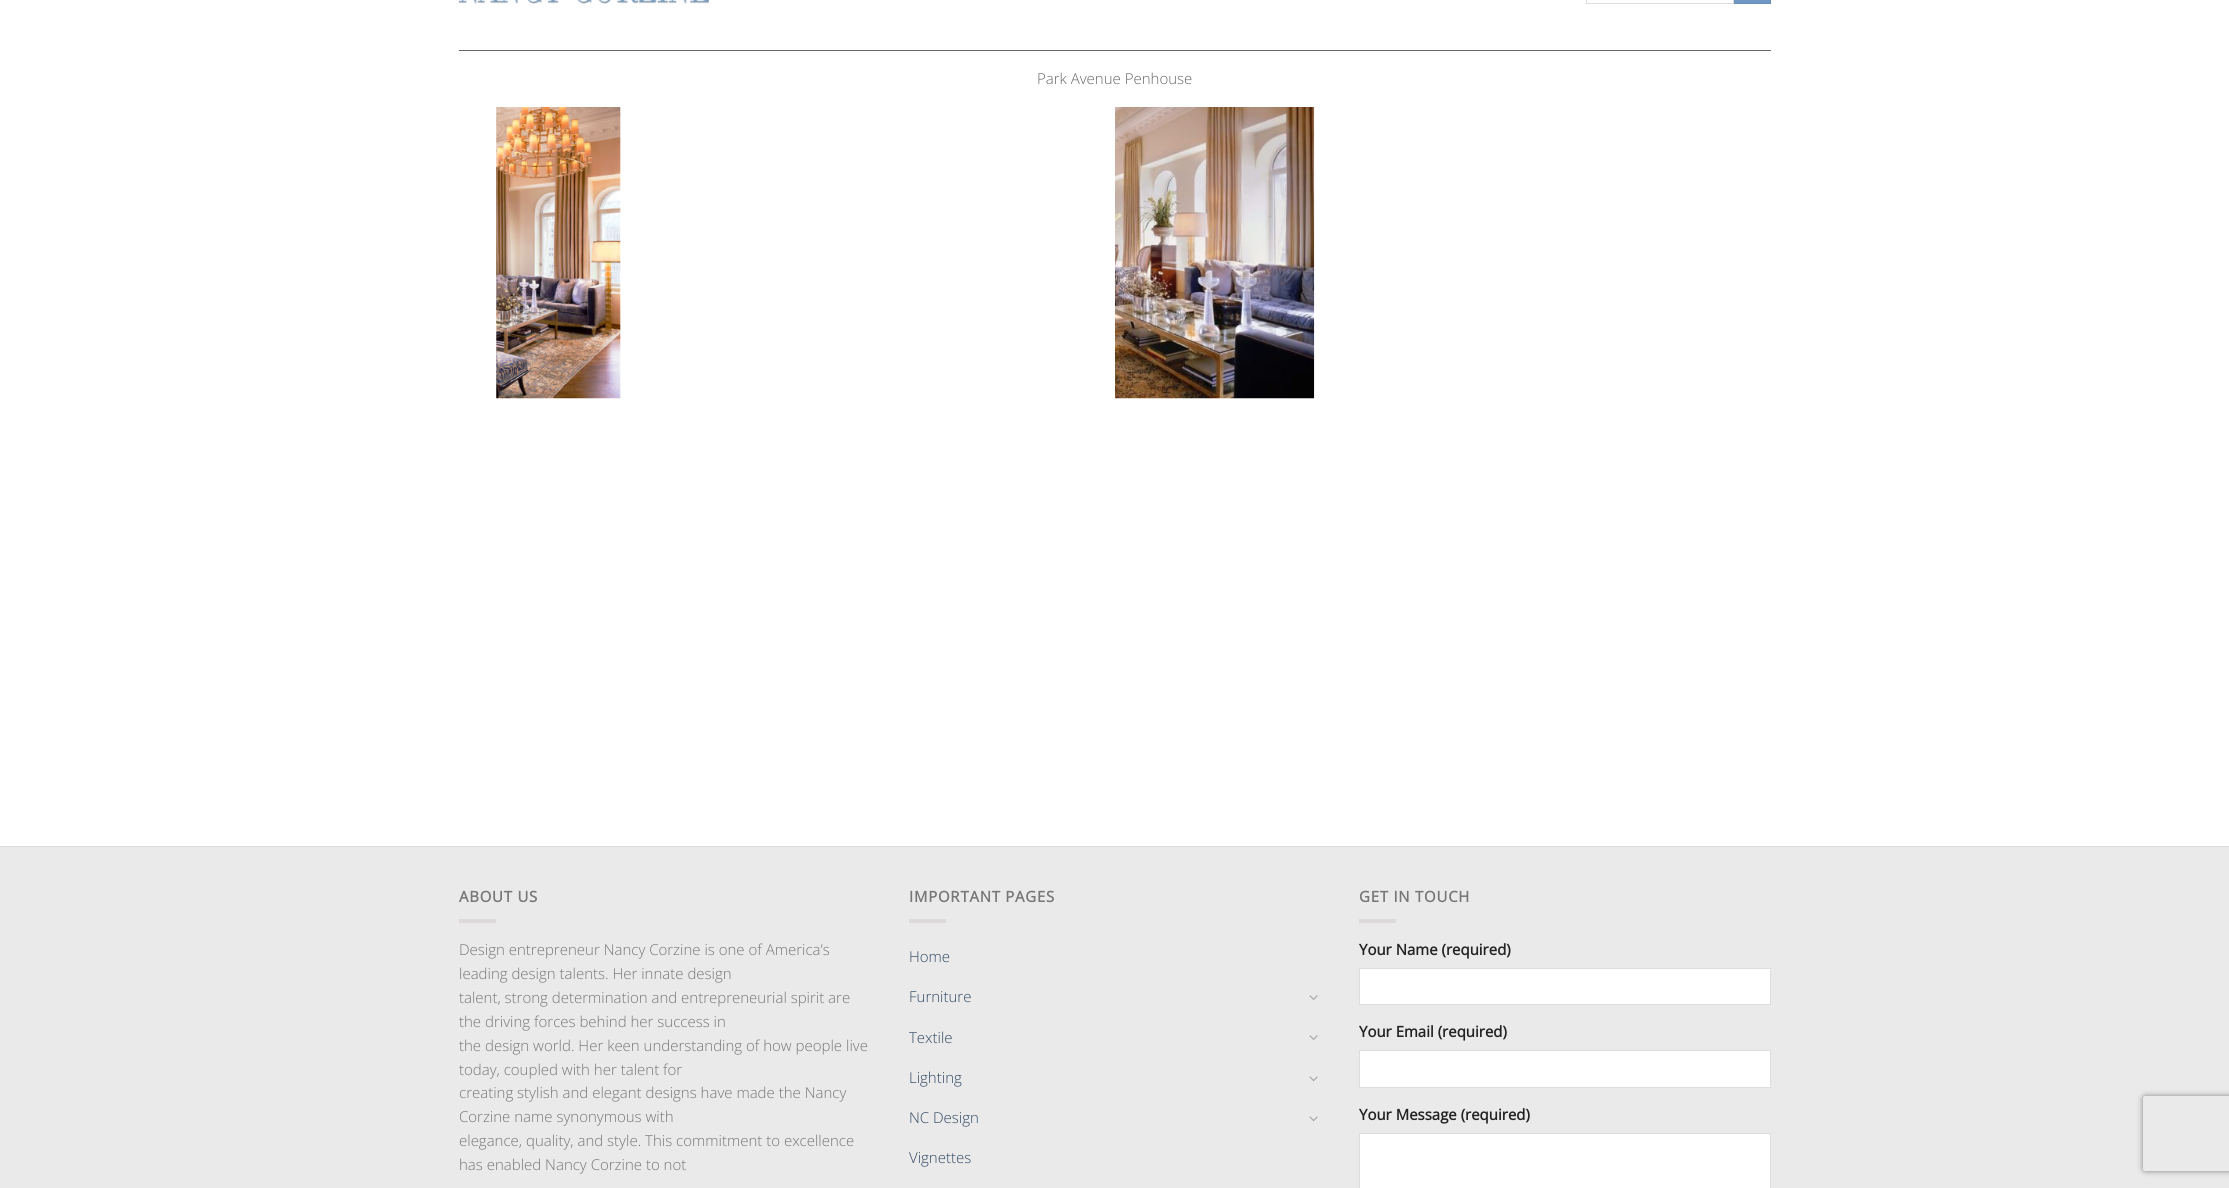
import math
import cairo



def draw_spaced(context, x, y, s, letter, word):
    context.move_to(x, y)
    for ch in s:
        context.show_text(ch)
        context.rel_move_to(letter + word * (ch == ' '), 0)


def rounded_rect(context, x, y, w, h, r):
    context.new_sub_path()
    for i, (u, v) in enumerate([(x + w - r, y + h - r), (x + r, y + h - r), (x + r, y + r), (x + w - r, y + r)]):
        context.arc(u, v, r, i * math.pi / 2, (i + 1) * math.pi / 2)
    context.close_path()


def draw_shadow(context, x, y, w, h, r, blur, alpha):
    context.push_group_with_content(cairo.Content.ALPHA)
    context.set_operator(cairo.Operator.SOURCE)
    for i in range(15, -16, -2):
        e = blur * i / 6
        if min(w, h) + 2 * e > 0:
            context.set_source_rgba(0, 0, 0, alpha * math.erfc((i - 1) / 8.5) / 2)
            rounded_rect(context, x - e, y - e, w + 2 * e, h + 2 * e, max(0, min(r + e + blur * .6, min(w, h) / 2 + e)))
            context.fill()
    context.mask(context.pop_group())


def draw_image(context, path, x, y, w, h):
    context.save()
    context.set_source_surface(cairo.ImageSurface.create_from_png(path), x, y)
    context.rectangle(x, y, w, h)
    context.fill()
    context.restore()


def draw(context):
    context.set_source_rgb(1, 1, 1)
    context.paint()
    draw_image(context, "images/1.png", 458, 0, 251, 4)
    context.rectangle(1586.5, -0.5, 147, 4)
    context.set_source_rgb(221 / 255, 221 / 255, 221 / 255)
    context.set_line_width(1)
    context.stroke()
    context.set_source_rgb(108 / 255, 152 / 255, 193 / 255)
    context.rectangle(1734.5, -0.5, 36, 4)
    context.fill_preserve()
    context.set_source_rgb(103 / 255, 144 / 255, 183 / 255)
    context.stroke()
    context.set_source_rgb(102 / 255, 102 / 255, 102 / 255)
    context.rectangle(459, 50, 1312, 1)
    context.fill()
    draw_image(context, "images/2.png", 496, 107, 125, 292)
    draw_image(context, "images/3.png", 1115, 107, 200, 292)
    context.set_source_rgb(234 / 255, 234 / 255, 234 / 255)
    context.rectangle(0, 847, 2229, 341)
    context.fill()
    context.set_source_rgb(222 / 255, 222 / 255, 222 / 255)
    context.rectangle(0, 846, 2229, 1)
    context.fill()
    context.set_source_rgb(221 / 255, 217 / 255, 217 / 255)
    context.rectangle(459, 919, 37, 4)
    context.fill()
    context.rectangle(909, 919, 37, 4)
    context.fill()
    draw_image(context, "images/4.png", 1309, 995, 9, 5)
    draw_image(context, "images/4.png", 1309, 1035, 9, 5)
    draw_image(context, "images/5.png", 1309, 1076, 9, 6)
    draw_image(context, "images/5.png", 1309, 1116, 9, 6)
    context.rectangle(1359, 919, 37, 4)
    context.fill()
    context.set_source_rgb(1, 1, 1)
    context.rectangle(1359.5, 968.5, 411, 36)
    context.fill_preserve()
    context.set_source_rgb(221 / 255, 221 / 255, 221 / 255)
    context.stroke()
    context.set_source_rgb(1, 1, 1)
    context.rectangle(1359.5, 1050.5, 411, 37)
    context.fill_preserve()
    context.set_source_rgb(221 / 255, 221 / 255, 221 / 255)
    context.stroke()
    context.set_source_rgb(1, 1, 1)
    context.rectangle(1359.5, 1133.5, 411, 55)
    context.fill_preserve()
    context.set_source_rgb(221 / 255, 221 / 255, 221 / 255)
    context.stroke()
    context.save()
    context.set_fill_rule(cairo.FillRule.EVEN_ODD)
    context.new_path()
    context.move_to(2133, 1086)
    context.line_to(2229, 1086)
    context.line_to(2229, 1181)
    context.line_to(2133, 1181)
    context.close_path()
    context.move_to(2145.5, 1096)
    context.line_to(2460.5, 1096)
    context.curve_to(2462, 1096, 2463, 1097, 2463, 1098.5)
    context.line_to(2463, 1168.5)
    context.curve_to(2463, 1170, 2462, 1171, 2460.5, 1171)
    context.line_to(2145.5, 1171)
    context.curve_to(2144, 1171, 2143, 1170, 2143, 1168.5)
    context.line_to(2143, 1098.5)
    context.curve_to(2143, 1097, 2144, 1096, 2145.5, 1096)
    context.close_path()
    context.clip()
    context.set_source_rgb(128 / 255, 128 / 255, 128 / 255)
    draw_shadow(context, 2143, 1096, 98, 75, 2.5, 3, 1)
    context.restore()
    context.select_font_face("Open Sans Light")
    context.set_font_size(15)
    context.set_source_rgb(103 / 255, 103 / 255, 103 / 255)
    context.move_to(1037, 84)
    context.show_text("Park Avenue Penhouse")
    context.select_font_face("Open Sans", cairo.FontSlant.NORMAL, cairo.FontWeight.BOLD)
    context.set_source_rgb(119 / 255, 119 / 255, 119 / 255)
    draw_spaced(context, 459, 902, "ABOUT US", 0.75, 0)
    context.select_font_face("Open Sans Light")
    context.move_to(459, 955)
    context.show_text("Design entrepreneur Nancy Corzine is one of America’s")
    context.move_to(459, 979)
    context.show_text("leading design talents. Her innate design")
    context.move_to(459, 1003)
    context.show_text("talent, strong determination and entrepreneurial spirit are")
    context.move_to(459, 1027)
    context.show_text("the driving forces behind her success in")
    context.move_to(459, 1051)
    context.show_text("the design world. Her keen understanding of how people live")
    context.move_to(459, 1075)
    context.show_text("today, coupled with her talent for")
    context.move_to(459, 1098)
    context.show_text("creating stylish and elegant designs have made the Nancy")
    context.move_to(459, 1122)
    context.show_text("Corzine name synonymous with")
    context.move_to(459, 1146)
    context.show_text("elegance, quality, and style. This commitment to excellence")
    context.move_to(459, 1170)
    context.show_text("has enabled Nancy Corzine to not")
    context.select_font_face("Open Sans", cairo.FontSlant.NORMAL, cairo.FontWeight.BOLD)
    draw_spaced(context, 909, 902, "IMPORTANT PAGES", 0.75, 0)
    context.select_font_face("Open Sans Light")
    context.set_source_rgb(51 / 255, 72 / 255, 98 / 255)
    context.move_to(909, 962)
    context.show_text("Home")
    context.move_to(909, 1002)
    context.show_text("Furniture")
    context.move_to(909, 1043)
    context.show_text("Textile")
    context.move_to(909, 1083)
    context.show_text("Lighting")
    context.move_to(909, 1123)
    context.show_text("NC Design")
    context.move_to(909, 1163)
    context.show_text("Vignettes")
    context.select_font_face("Open Sans", cairo.FontSlant.NORMAL, cairo.FontWeight.BOLD)
    context.set_source_rgb(119 / 255, 119 / 255, 119 / 255)
    draw_spaced(context, 1359, 902, "GET IN TOUCH", 0.75, 0)
    context.set_source_rgb(34 / 255, 34 / 255, 34 / 255)
    context.move_to(1359, 955)
    context.show_text("Your Name (required)")
    context.move_to(1359, 1037)
    context.show_text("Your Email (required)")
    context.move_to(1359, 1120)
    context.show_text("Your Message (required)")


surface = cairo.ImageSurface(cairo.Format.RGB24, 2229, 1188)
context = cairo.Context(surface)
options = cairo.FontOptions()
options.set_hint_metrics(cairo.HintMetrics.OFF)
options.set_hint_style(cairo.HintStyle.NONE)
context.set_font_options(options)
context.set_miter_limit(4)
draw(context)
surface.write_to_png("out.png")
